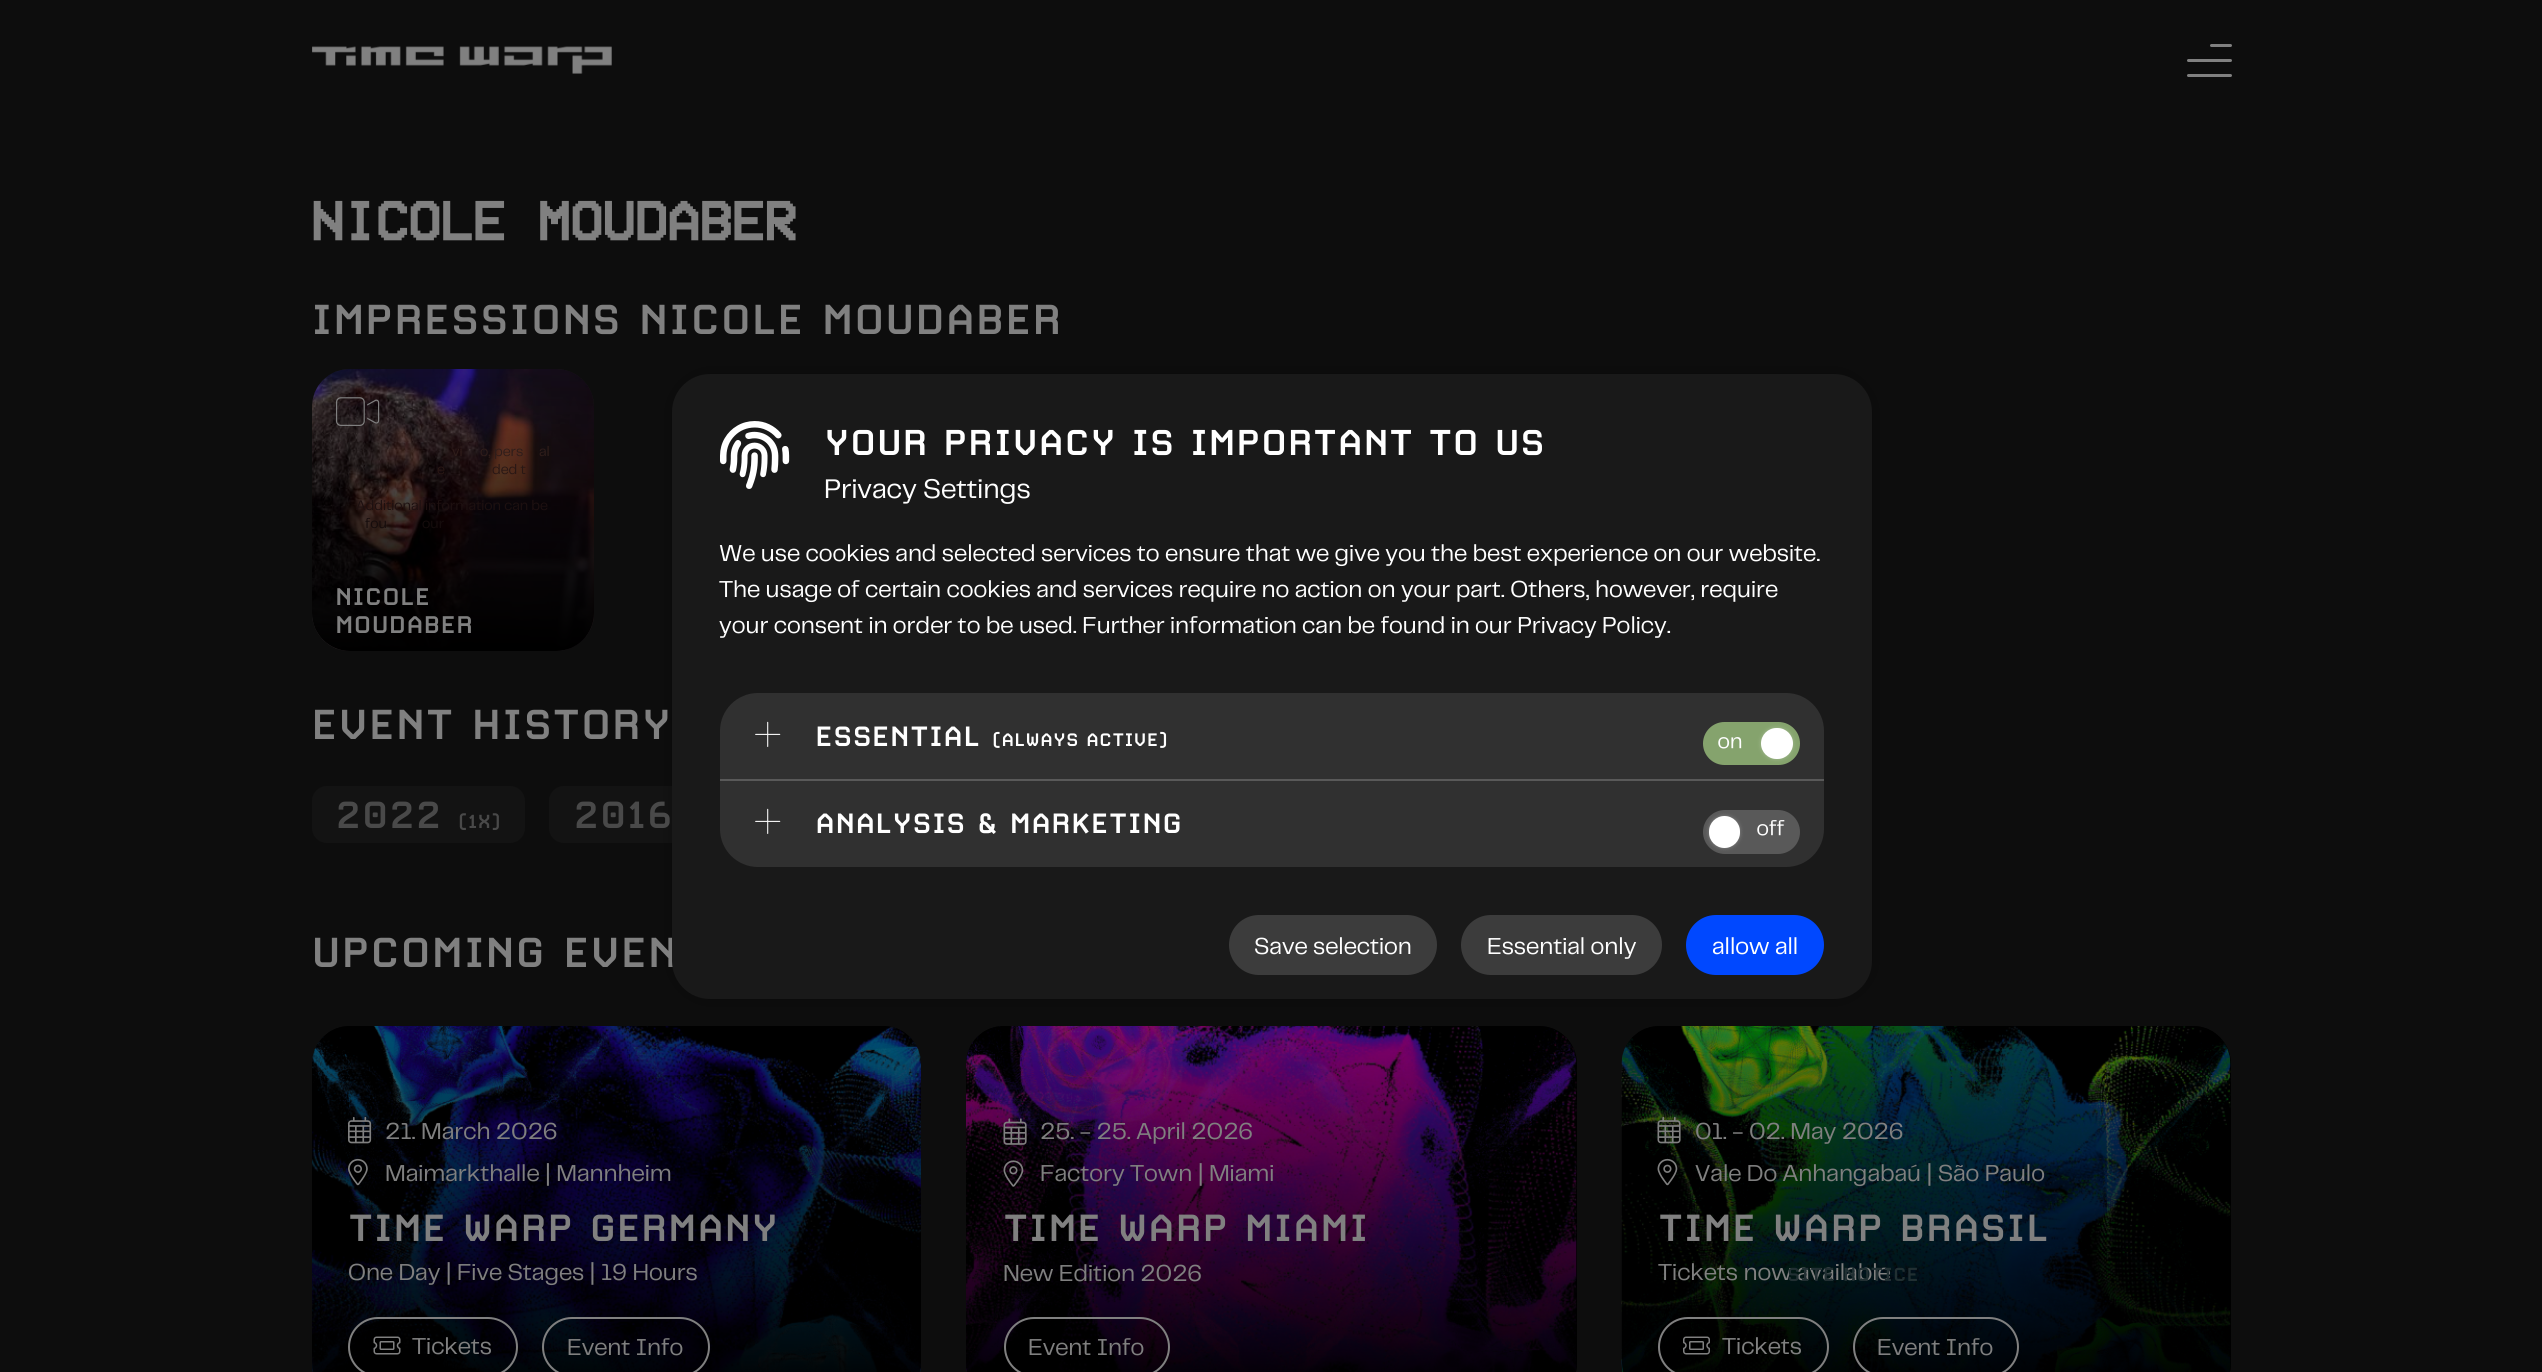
import math
import cairo



def rounded_rect(context, x, y, w, h, r):
    context.new_sub_path()
    for i, (u, v) in enumerate([(x + w - r, y + h - r), (x + r, y + h - r), (x + r, y + r), (x + w - r, y + r)]):
        context.arc(u, v, r, i * math.pi / 2, (i + 1) * math.pi / 2)
    context.close_path()


def draw_shadow(context, x, y, w, h, r, blur, alpha):
    context.push_group_with_content(cairo.Content.ALPHA)
    context.set_operator(cairo.Operator.SOURCE)
    for i in range(15, -16, -2):
        e = blur * i / 6
        if min(w, h) + 2 * e > 0:
            context.set_source_rgba(0, 0, 0, alpha * math.erfc((i - 1) / 8.5) / 2)
            rounded_rect(context, x - e, y - e, w + 2 * e, h + 2 * e, max(0, min(r + e + blur * .6, min(w, h) / 2 + e)))
            context.fill()
    context.mask(context.pop_group())


def draw_image(context, path, x, y, w, h):
    context.save()
    context.set_source_surface(cairo.ImageSurface.create_from_png(path), x, y)
    context.rectangle(x, y, w, h)
    context.fill()
    context.restore()


def draw(context):
    context.set_source_rgb(13 / 255, 13 / 255, 13 / 255)
    context.paint()
    draw_image(context, "images/1.png", 312, 46, 300, 28)
    context.set_source_rgb(128 / 255, 128 / 255, 128 / 255)
    rounded_rect(context, 2187, 59, 45, 3, 1.5)
    context.fill()
    rounded_rect(context, 2210, 44, 22, 3, 1.5)
    context.fill()
    rounded_rect(context, 2187, 74, 45, 3, 1.5)
    context.fill()
    context.set_source_rgb(24 / 255, 24 / 255, 24 / 255)
    rounded_rect(context, 312, 369, 282, 282, 38)
    context.fill()
    draw_image(context, "images/2.png", 312, 369, 282, 282)
    gradient = cairo.LinearGradient(453, 369, 453, 651)
    gradient.add_color_stop_rgba(0, 0, 0, 0, 0)
    gradient.add_color_stop_rgba(1, 0, 0, 0, 1)
    context.set_source(gradient)
    rounded_rect(context, 312, 369, 282, 282, 38)
    context.fill()
    draw_image(context, "images/3.png", 336, 397, 44, 29)
    context.set_source_rgb(19 / 255, 19 / 255, 19 / 255)
    rounded_rect(context, 312, 786, 213, 57, 15)
    context.fill()
    rounded_rect(context, 549, 786, 207, 57, 15)
    context.fill()
    context.set_source_rgb(0, 0, 0)
    rounded_rect(context, 312, 1026, 609, 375, 38)
    context.fill()
    draw_image(context, "images/4.png", 312, 1026, 609, 346)
    gradient = cairo.LinearGradient(617, 1026, 617, 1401)
    gradient.add_color_stop_rgba(0, 0, 0, 0, 0)
    gradient.add_color_stop_rgba(1, 0, 0, 0, 1)
    context.set_source(gradient)
    rounded_rect(context, 312, 1026, 609, 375, 38)
    context.fill()
    draw_image(context, "images/5.png", 348, 1116, 24, 28)
    draw_image(context, "images/6.png", 348, 1158, 20, 28)
    rounded_rect(context, 349, 1318, 168, 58, 29)
    context.set_source_rgb(128 / 255, 128 / 255, 128 / 255)
    context.stroke()
    draw_image(context, "images/7.png", 373, 1336, 28, 19)
    rounded_rect(context, 543, 1318, 166, 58, 29)
    context.stroke()
    context.set_source_rgb(0, 0, 0)
    rounded_rect(context, 966, 1026, 611, 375, 38)
    context.fill()
    draw_image(context, "images/8.png", 966, 1026, 611, 346)
    gradient = cairo.LinearGradient(1271, 1026, 1271, 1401)
    gradient.add_color_stop_rgba(0, 0, 0, 0, 0)
    gradient.add_color_stop_rgba(1, 0, 0, 0, 1)
    context.set_source(gradient)
    rounded_rect(context, 966, 1026, 611, 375, 38)
    context.fill()
    draw_image(context, "images/9.png", 1003, 1118, 24, 27)
    draw_image(context, "images/10.png", 1003, 1160, 21, 27)
    rounded_rect(context, 1005, 1318, 164, 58, 29)
    context.set_source_rgb(128 / 255, 128 / 255, 128 / 255)
    context.stroke()
    context.set_source_rgb(0, 0, 0)
    rounded_rect(context, 1622, 1026, 609, 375, 38)
    context.fill()
    draw_image(context, "images/11.png", 1621, 1026, 610, 346)
    gradient = cairo.LinearGradient(1926, 1026, 1926, 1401)
    gradient.add_color_stop_rgba(0, 0, 0, 0, 0)
    gradient.add_color_stop_rgba(1, 0, 0, 0, 1)
    context.set_source(gradient)
    rounded_rect(context, 1622, 1026, 609, 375, 38)
    context.fill()
    draw_image(context, "images/12.png", 1657, 1116, 24, 28)
    draw_image(context, "images/13.png", 1657, 1158, 21, 28)
    rounded_rect(context, 1659, 1318, 169, 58, 29)
    context.set_source_rgb(128 / 255, 128 / 255, 128 / 255)
    context.stroke()
    draw_image(context, "images/14.png", 1683, 1336, 27, 19)
    rounded_rect(context, 1854, 1318, 164, 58, 29)
    context.stroke()
    context.set_source_rgb(0, 0, 0)
    draw_shadow(context, 672, 374, 1200, 625, 38, 7.5, 0.25)
    context.select_font_face("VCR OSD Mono", cairo.FontSlant.NORMAL, cairo.FontWeight.BOLD)
    context.set_font_size(55.25)
    context.set_source_rgb(128 / 255, 128 / 255, 128 / 255)
    context.move_to(311, 243)
    context.show_text("NICOLE MOUDABER")
    context.select_font_face("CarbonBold", cairo.FontSlant.NORMAL, cairo.FontWeight.BOLD)
    context.set_font_size(50.4)
    context.move_to(311, 334)
    context.show_text("IMPRESSIONS NICOLE MOUDABER")
    context.select_font_face("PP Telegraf")
    context.set_font_size(14.4)
    context.set_source_rgb(47 / 255, 29 / 255, 26 / 255)
    context.move_to(452, 456)
    context.show_text("vi")
    context.move_to(480, 456)
    context.show_text("o, pers")
    context.move_to(539, 456)
    context.show_text("al")
    context.set_source_rgb(41 / 255, 23 / 255, 20 / 255)
    context.move_to(437, 474)
    context.show_text("e")
    context.move_to(492, 474)
    context.show_text("ded t")
    context.set_source_rgb(29 / 255, 16 / 255, 16 / 255)
    context.move_to(356, 510)
    context.show_text("Additional information can be")
    context.set_source_rgb(21 / 255, 12 / 255, 12 / 255)
    context.move_to(365, 528)
    context.show_text("fou")
    context.move_to(422, 528)
    context.show_text("our")
    context.select_font_face("CarbonBold", cairo.FontSlant.NORMAL, cairo.FontWeight.BOLD)
    context.set_font_size(29)
    context.set_source_rgb(128 / 255, 128 / 255, 128 / 255)
    context.move_to(335, 605)
    context.show_text("NICOLE")
    context.move_to(335, 633)
    context.show_text("MOUDABER")
    context.set_font_size(50.4)
    context.move_to(311, 739)
    context.show_text("EVENT HISTORY")
    context.set_font_size(45.5)
    context.set_source_rgb(73 / 255, 73 / 255, 73 / 255)
    context.move_to(335, 828)
    context.show_text("2022")
    context.set_font_size(22.75)
    context.move_to(458, 828)
    context.show_text("(1X)")
    context.set_font_size(45.5)
    context.move_to(573, 828)
    context.show_text("2016")
    context.set_font_size(50.4)
    context.set_source_rgb(128 / 255, 128 / 255, 128 / 255)
    context.move_to(311, 967)
    context.show_text("UPCOMING EVEN")
    context.select_font_face("PP Telegraf")
    context.set_font_size(24)
    context.move_to(385, 1139)
    context.show_text("21. March 2026")
    context.move_to(385, 1181)
    context.show_text("Maimarkthalle | Mannheim")
    context.select_font_face("CarbonBold", cairo.FontSlant.NORMAL, cairo.FontWeight.BOLD)
    context.set_font_size(45.5)
    context.move_to(348, 1241)
    context.show_text("TIME WARP GERMANY")
    context.select_font_face("PP Telegraf")
    context.set_font_size(24)
    context.move_to(348, 1280)
    context.show_text("One Day | Five Stages | 19 Hours")
    context.move_to(412, 1354)
    context.show_text("Tickets")
    context.move_to(567, 1355)
    context.show_text("Event Info")
    context.move_to(1040, 1139)
    context.show_text("25. - 25. April 2026")
    context.move_to(1040, 1181)
    context.show_text("Factory Town | Miami")
    context.select_font_face("CarbonBold", cairo.FontSlant.NORMAL, cairo.FontWeight.BOLD)
    context.set_font_size(45.5)
    context.move_to(1003, 1241)
    context.show_text("TIME WARP MIAMI")
    context.select_font_face("PP Telegraf")
    context.set_font_size(24)
    context.move_to(1003, 1281)
    context.show_text("New Edition 2026")
    context.move_to(1028, 1355)
    context.show_text("Event Info")
    context.move_to(1695, 1139)
    context.show_text("01. - 02. May 2026")
    context.move_to(1695, 1181)
    context.show_text("Vale Do Anhangabaú | São Paulo")
    context.select_font_face("CarbonBold", cairo.FontSlant.NORMAL, cairo.FontWeight.BOLD)
    context.set_font_size(45.5)
    context.move_to(1658, 1241)
    context.show_text("TIME WARP BRASIL")
    context.select_font_face("PP Telegraf")
    context.set_font_size(24)
    context.move_to(1658, 1280)
    context.show_text("Tickets now available")
    context.move_to(1722, 1354)
    context.show_text("Tickets")
    context.move_to(1877, 1355)
    context.show_text("Event Info")
    context.set_source_rgb(25 / 255, 25 / 255, 25 / 255)
    rounded_rect(context, 672, 374, 1200, 625, 38)
    context.fill()
    draw_image(context, "images/15.png", 720, 421, 70, 68)
    context.select_font_face("CarbonBold", cairo.FontSlant.NORMAL, cairo.FontWeight.BOLD)
    context.set_font_size(43.25)
    context.set_source_rgb(1, 1, 1)
    context.move_to(824, 455)
    context.show_text("YOUR PRIVACY IS IMPORTANT TO US")
    context.select_font_face("PP Telegraf")
    context.set_font_size(28)
    context.move_to(824, 498)
    context.show_text("Privacy Settings")
    context.set_font_size(24)
    context.move_to(719, 561)
    context.show_text("We use cookies and selected services to ensure that we give you the best experience on our website.")
    context.move_to(719, 597)
    context.show_text("The usage of certain cookies and services require no action on your part. Others, however, require")
    context.move_to(719, 633)
    context.show_text("your consent in order to be used. Further information can be found in our Privacy Policy.")
    context.set_source_rgb(48 / 255, 48 / 255, 48 / 255)
    rounded_rect(context, 720, 693, 1104, 174, 38)
    context.fill()
    draw_image(context, "images/16.png", 755, 721, 26, 26)
    context.select_font_face("CarbonBold", cairo.FontSlant.NORMAL, cairo.FontWeight.BOLD)
    context.set_font_size(33.6)
    context.set_source_rgb(1, 1, 1)
    context.move_to(815, 746)
    context.show_text("ESSENTIAL")
    context.set_font_size(21.75)
    context.move_to(992, 746)
    context.show_text("(ALWAYS ACTIVE)")
    context.set_source_rgb(133 / 255, 163 / 255, 109 / 255)
    rounded_rect(context, 1703, 722, 97, 43, 21.5)
    context.fill()
    draw_image(context, "images/17.png", 1718, 737, 24, 12)
    context.set_source_rgb(1, 1, 1)
    draw_shadow(context, 1761, 728, 32, 31, 15.5, 2, 0.25)
    context.set_source_rgb(1, 1, 1)
    rounded_rect(context, 1761, 728, 32, 31, 15.5)
    context.fill()
    context.set_source_rgb(89 / 255, 89 / 255, 89 / 255)
    context.rectangle(720, 779, 1104, 2)
    context.fill()
    draw_image(context, "images/16.png", 755, 808, 26, 26)
    context.set_font_size(33.6)
    context.set_source_rgb(1, 1, 1)
    context.move_to(815, 833)
    context.show_text("ANALYSIS & MARKETING")
    context.set_source_rgb(89 / 255, 89 / 255, 89 / 255)
    rounded_rect(context, 1703, 810, 97, 44, 22)
    context.fill()
    context.set_source_rgb(1, 1, 1)
    draw_shadow(context, 1709, 816, 31, 32, 15.5, 2, 0.25)
    context.set_source_rgb(1, 1, 1)
    rounded_rect(context, 1709, 816, 31, 32, 15.5)
    context.fill()
    draw_image(context, "images/18.png", 1757, 820, 28, 16)
    context.set_source_rgb(60 / 255, 60 / 255, 60 / 255)
    rounded_rect(context, 1229, 915, 208, 60, 30)
    context.fill()
    context.select_font_face("PP Telegraf")
    context.set_font_size(24)
    context.set_source_rgb(1, 1, 1)
    context.move_to(1254, 954)
    context.show_text("Save selection")
    context.set_source_rgb(60 / 255, 60 / 255, 60 / 255)
    rounded_rect(context, 1461, 915, 201, 60, 30)
    context.fill()
    context.set_source_rgb(1, 1, 1)
    context.move_to(1487, 954)
    context.show_text("Essential only")
    context.set_source_rgb(0, 72 / 255, 1)
    rounded_rect(context, 1687, 916, 136, 58, 29)
    context.fill_preserve()
    context.stroke()
    context.set_source_rgb(1, 1, 1)
    context.move_to(1712, 954)
    context.show_text("allow all")
    context.select_font_face("CarbonBold", cairo.FontSlant.NORMAL, cairo.FontWeight.BOLD)
    context.set_font_size(22.75)
    context.set_source_rgb(33 / 255, 47 / 255, 50 / 255)
    context.move_to(1787, 1281)
    context.show_text("SITE NOTICE")


surface = cairo.ImageSurface(cairo.Format.RGB24, 2542, 1372)
context = cairo.Context(surface)
options = cairo.FontOptions()
options.set_hint_metrics(cairo.HintMetrics.OFF)
options.set_hint_style(cairo.HintStyle.NONE)
context.set_font_options(options)
context.set_miter_limit(4)
draw(context)
surface.write_to_png("out.png")
